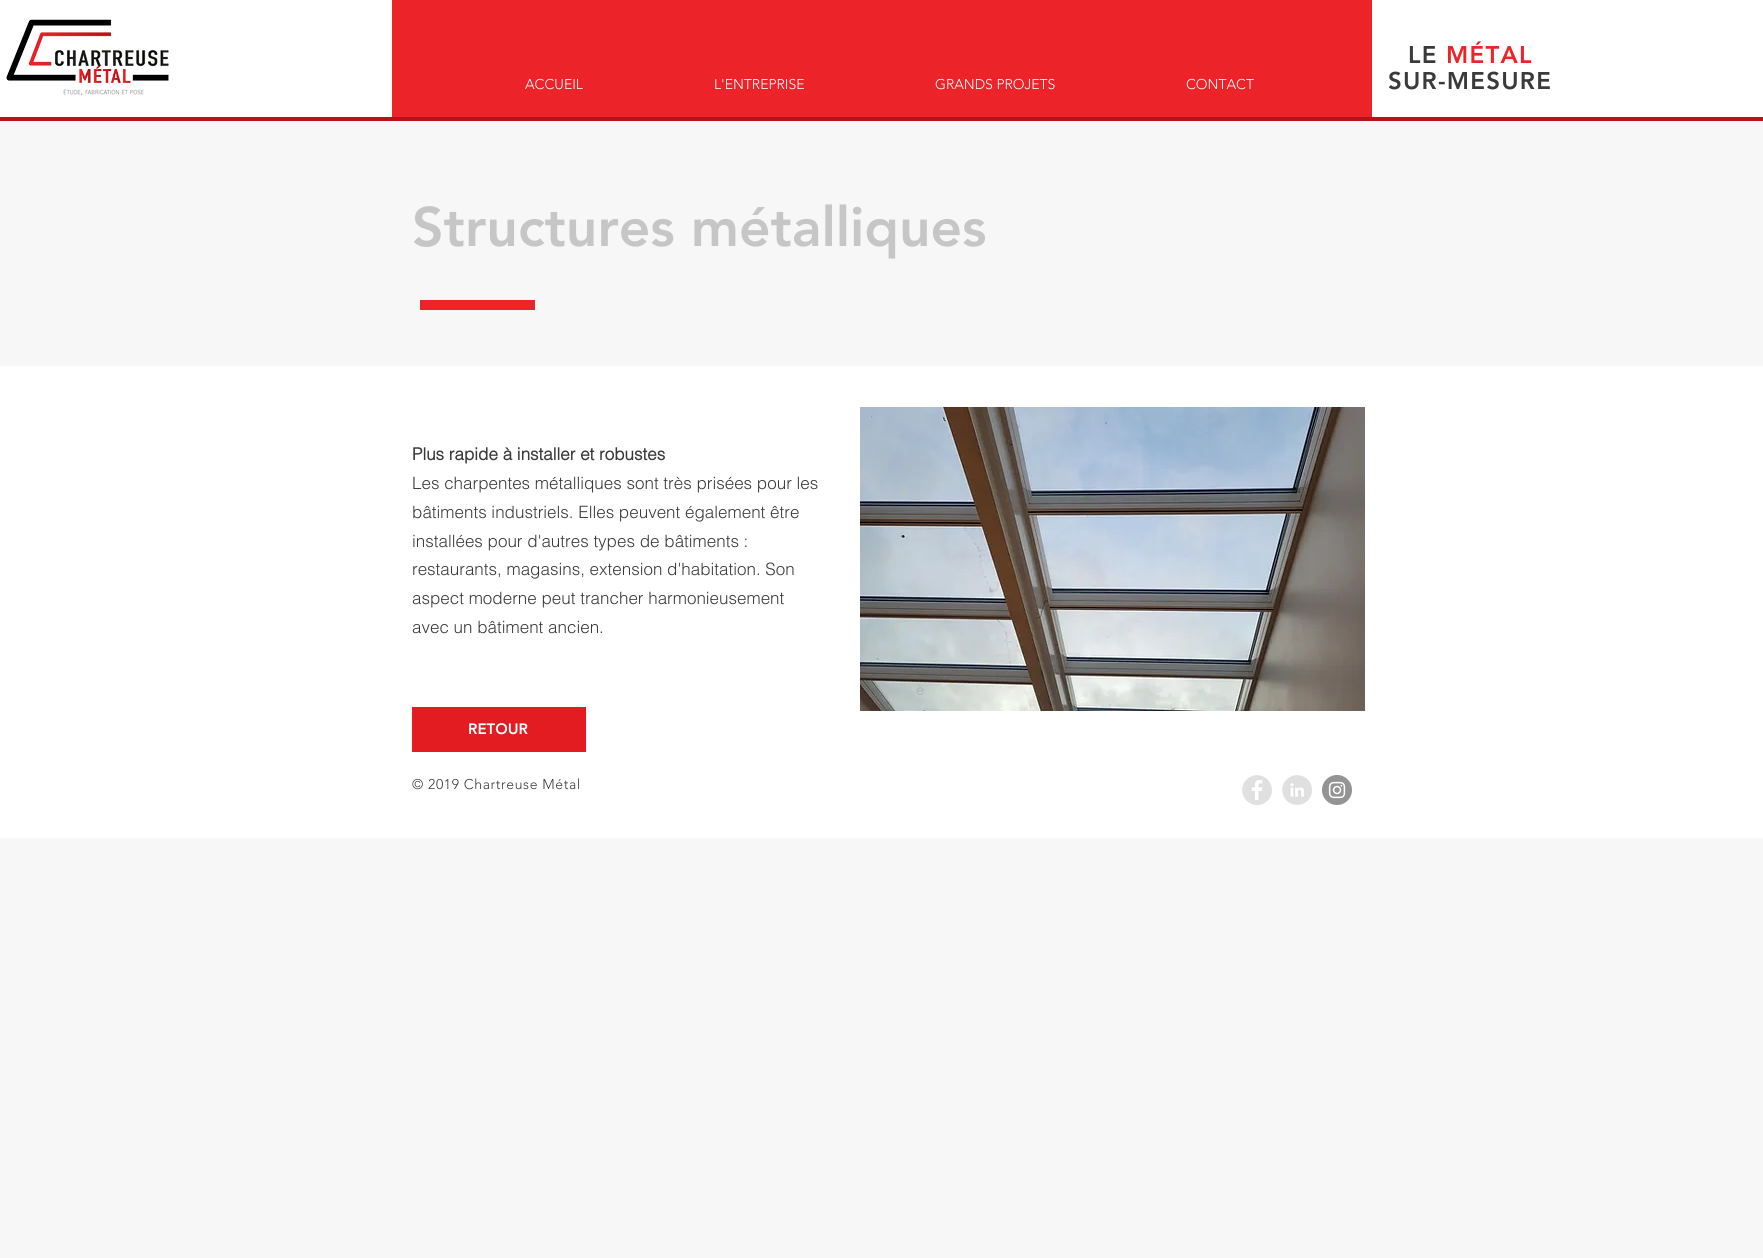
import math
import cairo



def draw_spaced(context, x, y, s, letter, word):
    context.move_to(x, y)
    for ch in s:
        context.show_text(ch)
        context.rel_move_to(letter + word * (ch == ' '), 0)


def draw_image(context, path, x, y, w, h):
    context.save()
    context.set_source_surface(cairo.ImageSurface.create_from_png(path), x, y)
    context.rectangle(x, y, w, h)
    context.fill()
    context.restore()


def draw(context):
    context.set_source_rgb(247 / 255, 247 / 255, 247 / 255)
    context.paint()
    context.set_source_rgb(1, 1, 1)
    context.rectangle(0, 0, 1763, 117)
    context.fill()
    draw_image(context, "images/1.png", 6, 19, 163, 77)
    context.set_source_rgb(182 / 255, 19 / 255, 24 / 255)
    context.rectangle(0, 117, 1763, 4)
    context.fill()
    context.set_source_rgb(237 / 255, 35 / 255, 42 / 255)
    context.rectangle(392, 0, 980, 117)
    context.fill()
    context.rectangle(420, 300, 115, 10)
    context.fill()
    context.set_source_rgb(1, 1, 1)
    context.rectangle(0, 366, 1763, 472)
    context.fill()
    draw_image(context, "images/2.png", 860, 407, 505, 304)
    context.set_source_rgb(226 / 255, 28 / 255, 33 / 255)
    context.rectangle(412, 707, 174, 45)
    context.fill()
    draw_image(context, "images/3.png", 1242, 775, 30, 30)
    draw_image(context, "images/4.png", 1282, 775, 30, 30)
    draw_image(context, "images/5.png", 1322, 775, 30, 30)
    context.select_font_face("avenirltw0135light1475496 Light")
    context.set_font_size(14)
    context.set_source_rgb(1, 1, 1)
    context.move_to(525, 89)
    context.show_text("ACCUEIL")
    context.move_to(714, 89)
    context.show_text("L'ENTREPRISE")
    context.move_to(935, 89)
    context.show_text("GRANDS PROJETS")
    context.move_to(1186, 89)
    context.show_text("CONTACT")
    context.select_font_face("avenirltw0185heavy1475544 Black")
    context.set_font_size(24)
    context.set_source_rgb(59 / 255, 58 / 255, 58 / 255)
    draw_spaced(context, 1408, 63, "LE", 1.25, 0)
    context.set_source_rgb(237 / 255, 35 / 255, 42 / 255)
    draw_spaced(context, 1446, 63, "MÉTAL", 1.25, 0)
    context.set_source_rgb(59 / 255, 58 / 255, 58 / 255)
    draw_spaced(context, 1388, 89, "SUR-MESURE", 1.25, 0)
    context.set_font_size(55)
    context.set_source_rgb(198 / 255, 198 / 255, 198 / 255)
    context.move_to(412, 246)
    context.show_text("Structures métalliques")
    context.select_font_face("helvetica", cairo.FontSlant.NORMAL, cairo.FontWeight.BOLD)
    context.set_font_size(17)
    context.set_source_rgb(59 / 255, 58 / 255, 58 / 255)
    context.move_to(412, 460)
    context.show_text("Plus rapide à installer et robustes")
    context.select_font_face("helvetica Light")
    context.move_to(412, 489)
    context.show_text("Les charpentes métalliques sont très prisées pour les")
    context.move_to(412, 518)
    context.show_text("bâtiments industriels. Elles peuvent également être")
    context.move_to(412, 547)
    context.show_text("installées pour d'autres types de bâtiments :")
    context.move_to(412, 575)
    context.show_text("restaurants, magasins, extension d'habitation. Son")
    context.move_to(412, 604)
    context.show_text("aspect moderne peut trancher harmonieusement")
    context.move_to(412, 633)
    context.show_text("avec un bâtiment ancien.")
    context.select_font_face("futura")
    context.set_font_size(16)
    context.set_source_rgb(171 / 255, 181 / 255, 179 / 255)
    context.move_to(916, 695)
    context.show_text("e")
    context.select_font_face("avenirltw0185heavy1475544 Black")
    context.set_font_size(15)
    context.set_source_rgb(1, 1, 1)
    context.move_to(468, 734)
    context.show_text("RETOUR")
    context.select_font_face("avenirltw0135light1475496 Light")
    context.set_font_size(14)
    context.set_source_rgb(59 / 255, 58 / 255, 58 / 255)
    draw_spaced(context, 412, 789, "© 2019 Chartreuse Métal", 0.6, 0)


surface = cairo.ImageSurface(cairo.Format.RGB24, 1763, 1258)
context = cairo.Context(surface)
options = cairo.FontOptions()
options.set_hint_metrics(cairo.HintMetrics.OFF)
options.set_hint_style(cairo.HintStyle.NONE)
context.set_font_options(options)
context.set_miter_limit(4)
draw(context)
surface.write_to_png("out.png")
